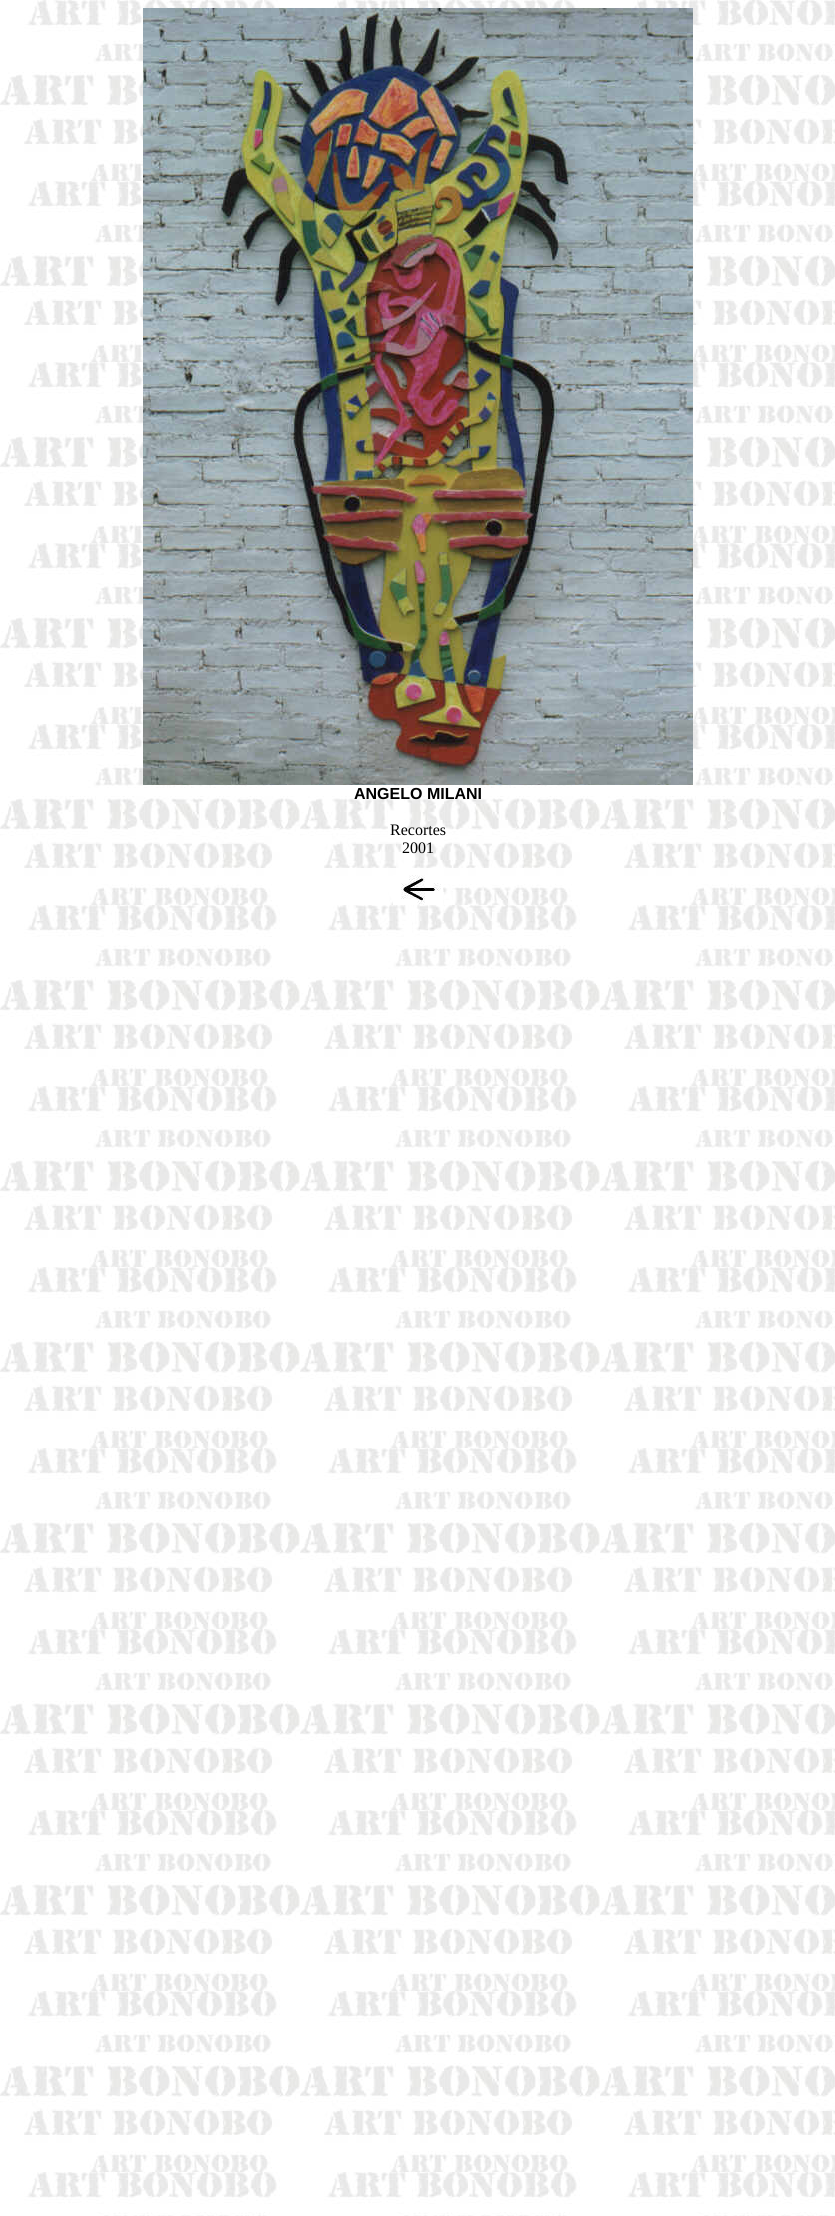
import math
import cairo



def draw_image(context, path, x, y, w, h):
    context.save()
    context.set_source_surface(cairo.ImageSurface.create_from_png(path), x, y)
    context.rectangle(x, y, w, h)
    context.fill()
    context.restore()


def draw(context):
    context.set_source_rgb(1, 1, 1)
    context.paint()
    draw_image(context, "images/1.png", 0, 0, 835, 2216)
    draw_image(context, "images/2.png", 143, 8, 550, 777)
    draw_image(context, "images/3.png", 393, 875, 50, 30)
    context.select_font_face("Liberation Sans", cairo.FontSlant.NORMAL, cairo.FontWeight.BOLD)
    context.set_font_size(16)
    context.set_source_rgb(0, 0, 0)
    context.move_to(354, 799)
    context.show_text("ANGELO MILANI")
    context.select_font_face("Liberation Serif")
    context.move_to(390, 835)
    context.show_text("Recortes")
    context.move_to(402, 853)
    context.show_text("2001")


surface = cairo.ImageSurface(cairo.Format.RGB24, 835, 2216)
context = cairo.Context(surface)
options = cairo.FontOptions()
options.set_hint_metrics(cairo.HintMetrics.OFF)
options.set_hint_style(cairo.HintStyle.NONE)
context.set_font_options(options)
context.set_miter_limit(4)
draw(context)
surface.write_to_png("out.png")
